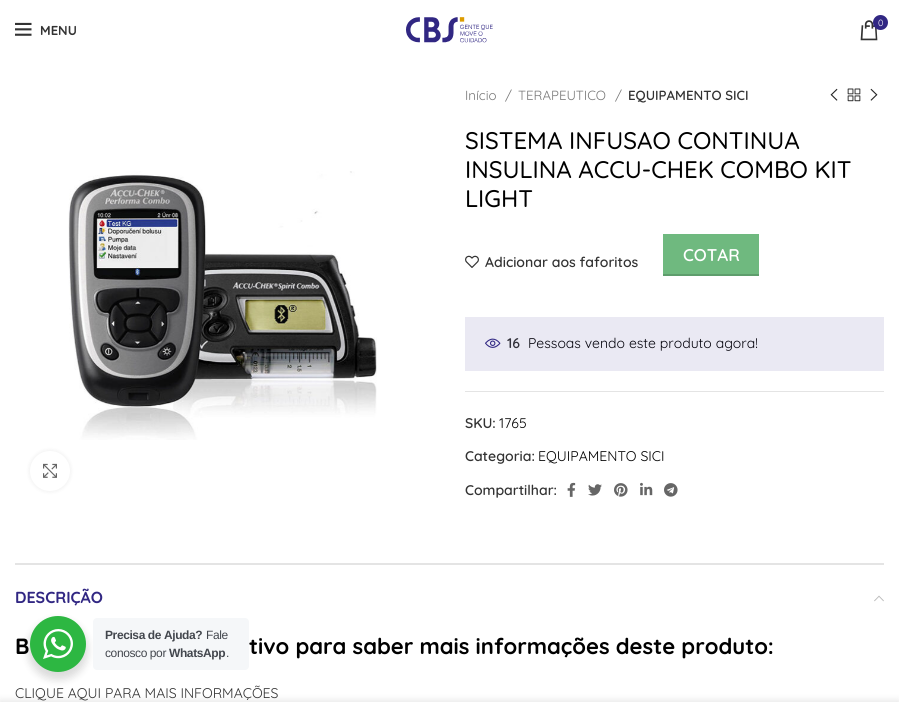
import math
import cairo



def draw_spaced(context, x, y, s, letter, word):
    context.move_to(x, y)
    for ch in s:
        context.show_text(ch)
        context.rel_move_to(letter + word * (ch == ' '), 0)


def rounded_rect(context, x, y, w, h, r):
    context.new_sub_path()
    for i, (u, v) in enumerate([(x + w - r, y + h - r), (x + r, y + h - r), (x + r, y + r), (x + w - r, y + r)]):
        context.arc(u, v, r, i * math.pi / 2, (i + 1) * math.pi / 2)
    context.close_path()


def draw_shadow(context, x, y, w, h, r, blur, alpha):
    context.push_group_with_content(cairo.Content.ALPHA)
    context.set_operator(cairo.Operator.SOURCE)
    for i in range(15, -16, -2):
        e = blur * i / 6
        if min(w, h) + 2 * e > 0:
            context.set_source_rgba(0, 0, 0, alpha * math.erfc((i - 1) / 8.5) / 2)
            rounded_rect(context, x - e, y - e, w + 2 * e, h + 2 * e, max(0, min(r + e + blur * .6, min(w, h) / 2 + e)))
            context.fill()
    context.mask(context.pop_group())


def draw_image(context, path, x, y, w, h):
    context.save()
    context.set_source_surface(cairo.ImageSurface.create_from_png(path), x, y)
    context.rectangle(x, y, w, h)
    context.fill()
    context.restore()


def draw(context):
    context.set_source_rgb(1, 1, 1)
    context.paint()
    context.set_source_rgb(234 / 255, 233 / 255, 243 / 255)
    context.rectangle(465, 317, 419, 54)
    context.fill()
    draw_image(context, "images/1.png", 406, 17, 87, 26)
    draw_image(context, "images/2.png", 860, 20, 18, 21)
    context.set_source_rgb(49 / 255, 39 / 255, 131 / 255)
    context.arc(880.5, 22.5, 7.5, 0, 2 * math.pi)
    context.fill()
    draw_image(context, "images/3.png", 15, 22, 17, 14)
    draw_image(context, "images/4.png", 68, 171, 309, 269)
    context.set_source_rgb(0, 0, 0)
    draw_shadow(context, 30, 451, 40, 40, 20, 2.5, 0.08)
    context.set_source_rgb(1, 1, 1)
    context.arc(50, 471, 20, 0, 2 * math.pi)
    context.fill()
    draw_image(context, "images/5.png", 43, 463, 14, 15)
    draw_image(context, "images/6.png", 830, 88, 8, 13)
    draw_image(context, "images/7.png", 847, 88, 14, 14)
    draw_image(context, "images/8.png", 870, 88, 8, 13)
    draw_image(context, "images/9.png", 465, 255, 14, 13)
    context.set_source_rgb(111 / 255, 185 / 255, 127 / 255)
    context.rectangle(663, 234, 96, 40)
    context.fill()
    context.set_source_rgb(94 / 255, 157 / 255, 108 / 255)
    context.rectangle(663, 274, 96, 2)
    context.fill()
    draw_image(context, "images/10.png", 485, 338, 16, 10)
    context.set_source_rgb(228 / 255, 228 / 255, 228 / 255)
    context.rectangle(465, 391, 419, 1)
    context.fill()
    draw_image(context, "images/11.png", 567, 482, 9, 15)
    draw_image(context, "images/12.png", 588, 484, 14, 12)
    draw_image(context, "images/13.png", 614, 483, 14, 14)
    draw_image(context, "images/14.png", 640, 482, 13, 14)
    draw_image(context, "images/15.png", 664, 483, 14, 14)
    context.rectangle(15, 563, 869, 2)
    context.fill()
    draw_image(context, "images/16.png", 874, 595, 10, 7)
    context.set_source_rgb(0, 0, 0)
    draw_shadow(context, 28, 620, 60, 60, 30, 4, 0.14)
    context.set_source_rgb(45 / 255, 183 / 255, 66 / 255)
    context.arc(58, 644, 28, 0, 2 * math.pi)
    context.fill()
    draw_image(context, "images/17.png", 43, 629, 30, 30)
    context.set_source_rgb(245 / 255, 247 / 255, 249 / 255)
    rounded_rect(context, 93, 618, 156, 52, 4)
    context.fill()
    context.set_source_rgb(0, 0, 0)
    draw_shadow(context, 0, 702, 899, 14, 0, 4.5, 0.14)
    context.select_font_face("Quicksand")
    context.set_font_size(9)
    context.set_source_rgb(1, 1, 1)
    context.move_to(878, 26)
    context.show_text("0")
    context.select_font_face("Quicksand", cairo.FontSlant.NORMAL, cairo.FontWeight.BOLD)
    context.set_font_size(13)
    context.set_source_rgb(51 / 255, 51 / 255, 51 / 255)
    context.move_to(40, 35)
    context.show_text("MENU")
    context.select_font_face("Quicksand")
    context.set_font_size(13.25)
    context.set_source_rgb(119 / 255, 119 / 255, 119 / 255)
    context.move_to(465, 100)
    context.show_text("Início")
    context.move_to(505, 100)
    context.show_text("/")
    context.move_to(518, 100)
    context.show_text("TERAPEUTICO")
    context.move_to(615, 100)
    context.show_text("/")
    context.select_font_face("Quicksand SemiBold")
    context.set_source_rgb(51 / 255, 51 / 255, 51 / 255)
    context.move_to(628, 100)
    context.show_text("EQUIPAMENTO SICI")
    context.select_font_face("Quicksand Medium")
    context.set_font_size(24)
    context.set_source_rgb(0, 0, 0)
    context.move_to(465, 149)
    context.show_text("SISTEMA INFUSAO CONTINUA")
    context.move_to(465, 178)
    context.show_text("INSULINA ACCU-CHEK COMBO KIT")
    context.move_to(465, 207)
    context.show_text("LIGHT")
    context.select_font_face("Quicksand SemiBold")
    context.set_font_size(14)
    context.set_source_rgb(51 / 255, 51 / 255, 51 / 255)
    context.move_to(485, 267)
    context.show_text("Adicionar aos faforitos")
    context.set_font_size(17)
    context.set_source_rgb(1, 1, 1)
    context.move_to(683, 261)
    context.show_text("COTAR")
    context.set_font_size(14)
    context.set_source_rgb(51 / 255, 50 / 255, 59 / 255)
    context.move_to(507, 348)
    context.show_text("16")
    context.select_font_face("Quicksand")
    context.set_source_rgb(5 / 255, 4 / 255, 13 / 255)
    context.move_to(528, 348)
    context.show_text("Pessoas vendo este produto agora!")
    context.select_font_face("Quicksand SemiBold")
    context.set_source_rgb(51 / 255, 51 / 255, 51 / 255)
    context.move_to(465, 428)
    context.show_text("SKU:")
    context.select_font_face("Quicksand")
    context.set_source_rgb(0, 0, 0)
    context.move_to(499, 428)
    context.show_text("1765")
    context.select_font_face("Quicksand SemiBold")
    context.set_source_rgb(51 / 255, 51 / 255, 51 / 255)
    context.move_to(465, 461)
    context.show_text("Categoria:")
    context.select_font_face("Quicksand")
    context.set_source_rgb(0, 0, 0)
    context.move_to(538, 461)
    context.show_text("EQUIPAMENTO SICI")
    context.select_font_face("Quicksand SemiBold")
    context.set_source_rgb(51 / 255, 51 / 255, 51 / 255)
    context.move_to(465, 495)
    context.show_text("Compartilhar:")
    context.select_font_face("Quicksand", cairo.FontSlant.NORMAL, cairo.FontWeight.BOLD)
    context.set_font_size(16)
    context.set_source_rgb(49 / 255, 39 / 255, 131 / 255)
    context.move_to(15, 603)
    context.show_text("DESCRIÇÃO")
    context.set_font_size(22)
    context.set_source_rgb(0, 0, 0)
    context.move_to(15, 654)
    context.show_text("B")
    context.move_to(249, 654)
    context.show_text("tivo para saber mais informações deste produto:")
    context.select_font_face("Quicksand")
    context.set_font_size(14)
    context.set_source_rgb(51 / 255, 51 / 255, 51 / 255)
    context.move_to(15, 698)
    context.show_text("CLIQUE AQUI PARA MAIS INFORMAÇÕES")
    context.select_font_face("Liberation Sans", cairo.FontSlant.NORMAL, cairo.FontWeight.BOLD)
    context.set_font_size(12)
    context.set_source_rgb(67 / 255, 71 / 255, 78 / 255)
    draw_spaced(context, 105, 639, "Precisa de Ajuda?", -0.4, 0)
    context.select_font_face("Liberation Sans")
    draw_spaced(context, 206, 639, "Fale", -0.4, 0)
    draw_spaced(context, 105, 657, "conosco por", -0.4, 0)
    context.select_font_face("Liberation Sans", cairo.FontSlant.NORMAL, cairo.FontWeight.BOLD)
    draw_spaced(context, 169, 657, "WhatsApp", -0.4, 0)
    context.select_font_face("Liberation Sans")
    draw_spaced(context, 226, 657, ".", -0.4, 0)


surface = cairo.ImageSurface(cairo.Format.RGB24, 899, 702)
context = cairo.Context(surface)
options = cairo.FontOptions()
options.set_hint_metrics(cairo.HintMetrics.OFF)
options.set_hint_style(cairo.HintStyle.NONE)
context.set_font_options(options)
context.set_miter_limit(4)
draw(context)
surface.write_to_png("out.png")
